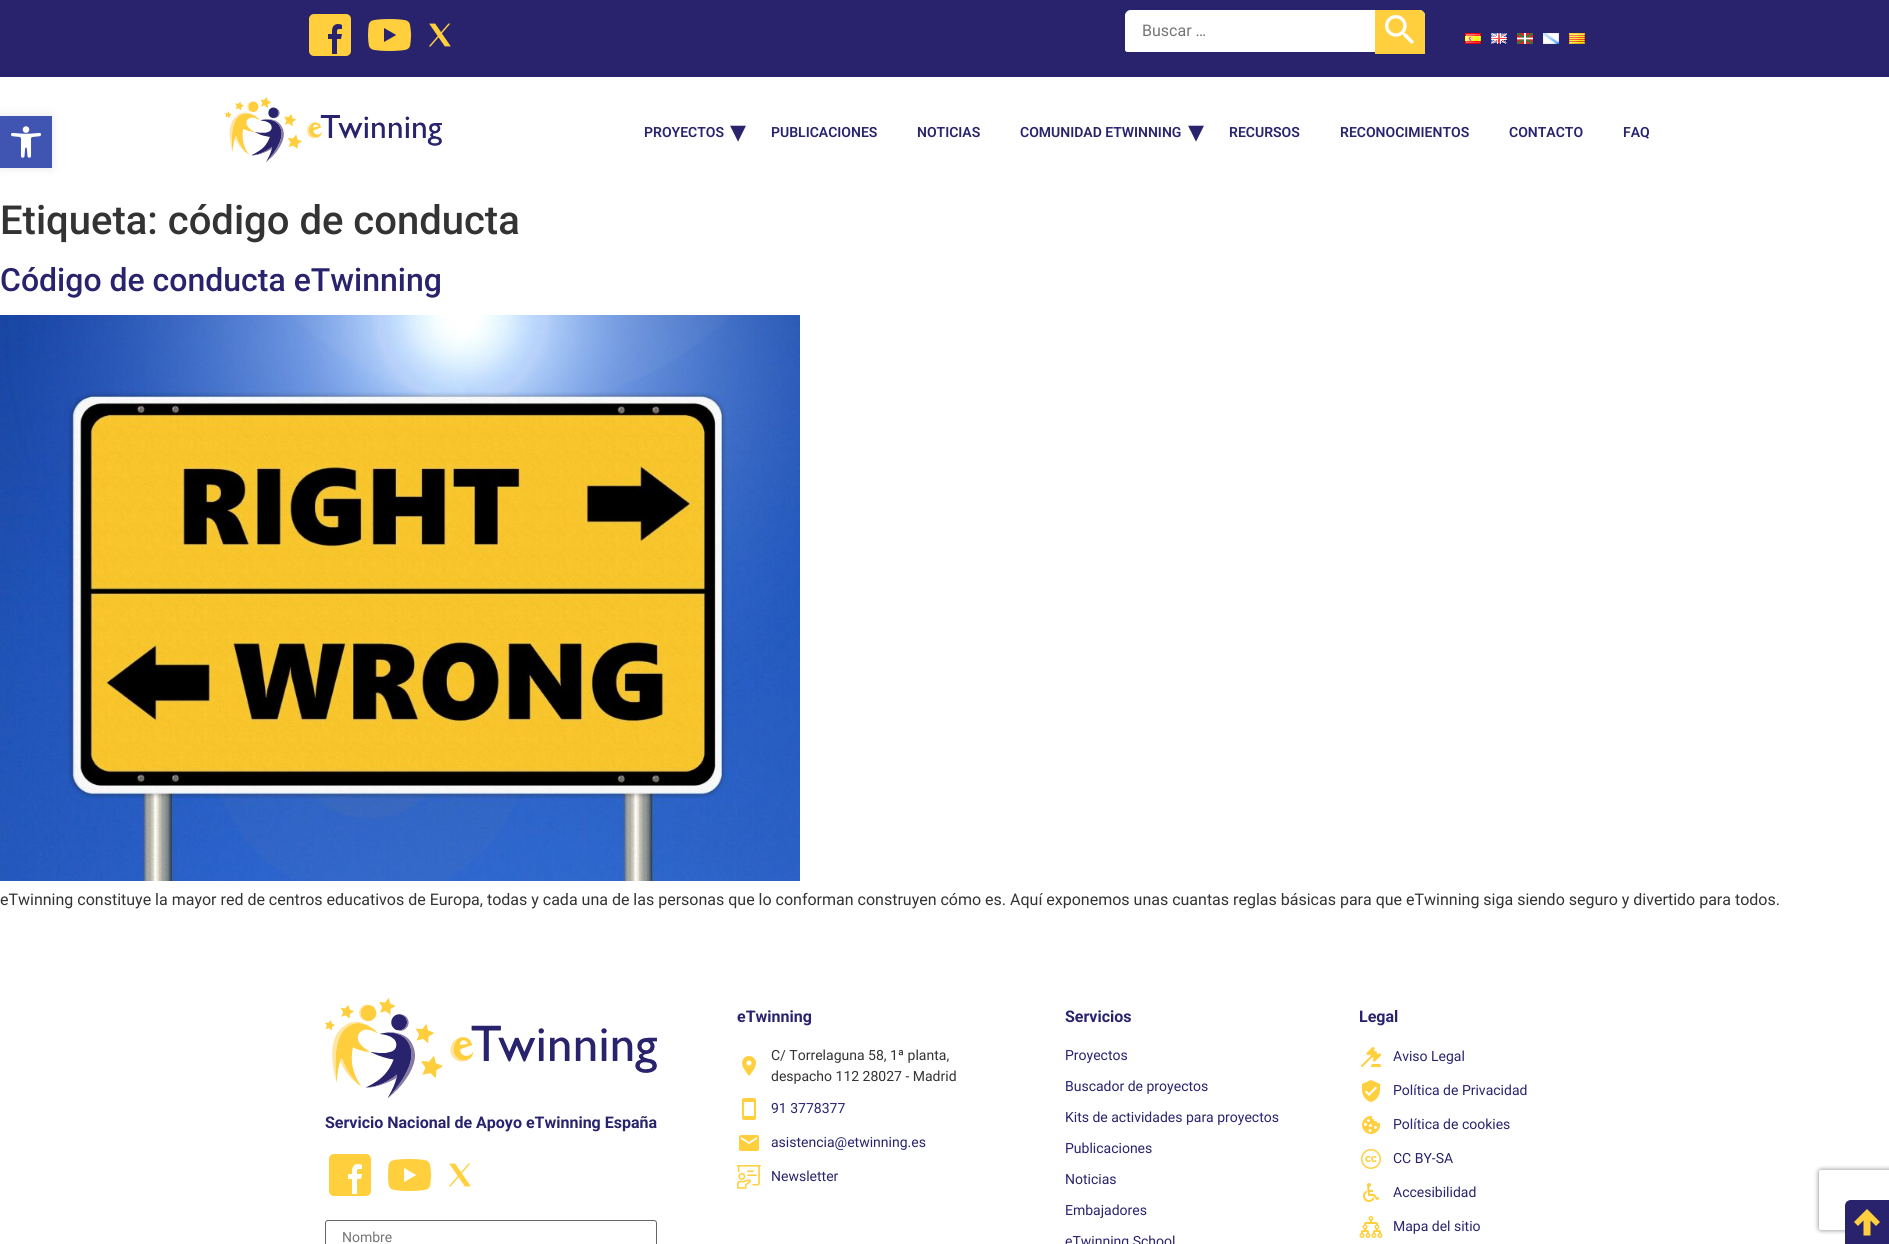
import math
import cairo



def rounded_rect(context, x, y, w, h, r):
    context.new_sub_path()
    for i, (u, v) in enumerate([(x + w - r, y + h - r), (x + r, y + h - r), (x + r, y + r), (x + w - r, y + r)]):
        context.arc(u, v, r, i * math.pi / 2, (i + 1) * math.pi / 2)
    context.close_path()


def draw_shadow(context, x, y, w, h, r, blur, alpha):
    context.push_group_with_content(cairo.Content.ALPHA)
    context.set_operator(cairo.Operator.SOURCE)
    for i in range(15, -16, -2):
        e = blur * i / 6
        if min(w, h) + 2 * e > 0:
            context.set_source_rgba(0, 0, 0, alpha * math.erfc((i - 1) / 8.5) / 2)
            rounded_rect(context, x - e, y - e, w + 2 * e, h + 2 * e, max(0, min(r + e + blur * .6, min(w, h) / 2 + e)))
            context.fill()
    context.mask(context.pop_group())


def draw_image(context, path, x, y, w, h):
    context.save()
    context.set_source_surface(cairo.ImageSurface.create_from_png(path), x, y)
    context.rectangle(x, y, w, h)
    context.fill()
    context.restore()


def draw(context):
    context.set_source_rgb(1, 1, 1)
    context.paint()
    context.set_source_rgb(41 / 255, 35 / 255, 110 / 255)
    context.rectangle(0, 0, 1889, 77)
    context.fill()
    draw_image(context, "images/1.png", 309, 14, 42, 42)
    draw_image(context, "images/2.png", 368, 19, 44, 32)
    draw_image(context, "images/3.png", 428, 23, 23, 24)
    context.set_source_rgb(1, 1, 1)
    context.new_path()
    context.move_to(1131, 10)
    context.line_to(1419, 10)
    context.curve_to(1422.5, 10, 1425, 12.5, 1425, 16)
    context.line_to(1425, 49)
    context.curve_to(1425, 50.5, 1423.5, 52, 1422, 52)
    context.line_to(1128, 52)
    context.curve_to(1126.5, 52, 1125, 50.5, 1125, 49)
    context.line_to(1125, 16)
    context.curve_to(1125, 12.5, 1127.5, 10, 1131, 10)
    context.close_path()
    context.fill()
    context.set_fill_rule(cairo.FillRule.EVEN_ODD)
    context.new_path()
    context.move_to(1125, 16)
    context.line_to(1125, 49)
    context.curve_to(1125, 51, 1126, 52, 1128, 52)
    context.line_to(1422, 52)
    context.curve_to(1424, 52, 1425, 51, 1425, 49)
    context.line_to(1425, 16)
    context.curve_to(1425, 15, 1425, 14, 1424, 13)
    context.line_to(1424, 49)
    context.curve_to(1424, 50, 1423, 51, 1422, 51)
    context.line_to(1128, 51)
    context.curve_to(1127, 51, 1126, 50, 1126, 49)
    context.line_to(1126, 13)
    context.close_path()
    context.move_to(1128, 11)
    context.line_to(1422, 11)
    context.line_to(1419, 10)
    context.line_to(1131, 10)
    context.close_path()
    context.fill()
    context.set_source_rgb(1, 207 / 255, 61 / 255)
    context.new_path()
    context.move_to(1375, 10)
    context.line_to(1419, 10)
    context.curve_to(1422.5, 10, 1425, 12.5, 1425, 16)
    context.line_to(1425, 54)
    context.line_to(1375, 54)
    context.close_path()
    context.fill()
    draw_image(context, "images/4.png", 1385, 15, 30, 30)
    draw_image(context, "images/5.png", 1465, 33, 16, 11)
    draw_image(context, "images/6.png", 1491, 33, 16, 11)
    draw_image(context, "images/7.png", 1517, 33, 16, 11)
    draw_image(context, "images/8.png", 1543, 33, 16, 11)
    draw_image(context, "images/9.png", 1569, 33, 16, 11)
    context.set_source_rgb(0, 0, 0)
    draw_shadow(context, 0, 116, 52, 52, 0, 5, 0.1)
    context.set_source_rgb(64 / 255, 84 / 255, 178 / 255)
    context.rectangle(0, 116, 52, 52)
    context.fill()
    draw_image(context, "images/10.png", 11, 126, 30, 32)
    draw_image(context, "images/11.png", 225, 97, 217, 65)
    draw_image(context, "images/12.png", 0, 315, 800, 566)
    draw_image(context, "images/13.png", 325, 998, 332, 100)
    draw_image(context, "images/14.png", 329, 1154, 42, 42)
    draw_image(context, "images/15.png", 388, 1159, 44, 32)
    draw_image(context, "images/16.png", 448, 1163, 23, 24)
    rounded_rect(context, 325.5, 1220.5, 331, 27, 2.5)
    context.set_source_rgb(102 / 255, 102 / 255, 102 / 255)
    context.set_line_width(1)
    context.stroke()
    draw_image(context, "images/17.png", 742, 1056, 14, 20)
    draw_image(context, "images/18.png", 742, 1098, 14, 22)
    draw_image(context, "images/19.png", 739, 1135, 20, 16)
    draw_image(context, "images/20.png", 737, 1165, 24, 24)
    draw_image(context, "images/21.png", 1361, 1046, 21, 21)
    draw_image(context, "images/22.png", 1362, 1080, 18, 22)
    draw_image(context, "images/23.png", 1362, 1116, 18, 18)
    draw_image(context, "images/24.png", 1361, 1149, 20, 20)
    draw_image(context, "images/25.png", 1363, 1183, 17, 19)
    draw_image(context, "images/26.png", 1359, 1216, 24, 22)
    context.save()
    context.new_path()
    context.move_to(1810, 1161)
    context.line_to(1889, 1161)
    context.line_to(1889, 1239)
    context.line_to(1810, 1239)
    context.close_path()
    context.move_to(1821, 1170)
    context.line_to(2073, 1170)
    context.curve_to(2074, 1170, 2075, 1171, 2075, 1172)
    context.line_to(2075, 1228)
    context.curve_to(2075, 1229, 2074, 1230, 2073, 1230)
    context.line_to(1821, 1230)
    context.curve_to(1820, 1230, 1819, 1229, 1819, 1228)
    context.line_to(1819, 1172)
    context.curve_to(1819, 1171, 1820, 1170, 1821, 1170)
    context.close_path()
    context.clip()
    context.set_source_rgb(128 / 255, 128 / 255, 128 / 255)
    draw_shadow(context, 1819, 1170, 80, 60, 2, 2.5, 1)
    context.restore()
    context.set_source_rgb(41 / 255, 35 / 255, 110 / 255)
    context.new_path()
    context.move_to(1851, 1200)
    context.line_to(1889, 1200)
    context.line_to(1889, 1244)
    context.line_to(1845, 1244)
    context.line_to(1845, 1206)
    context.curve_to(1845, 1202.5, 1847.5, 1200, 1851, 1200)
    context.close_path()
    context.fill()
    context.set_source_rgb(1, 207 / 255, 61 / 255)
    context.set_fill_rule(cairo.FillRule.WINDING)
    context.new_path()
    context.move_to(1870.5, 1235.5)
    context.line_to(1863.5, 1235.5)
    context.line_to(1863.5, 1220.5)
    context.line_to(1858, 1226)
    context.line_to(1854, 1222)
    context.line_to(1867, 1209)
    context.line_to(1880, 1222)
    context.line_to(1876, 1226)
    context.line_to(1870.5, 1220.5)
    context.close_path()
    context.fill()
    context.select_font_face("Roboto")
    context.set_font_size(16)
    context.set_source_rgb(117 / 255, 117 / 255, 117 / 255)
    context.move_to(1142, 36)
    context.show_text("Buscar …")
    context.select_font_face("Roboto SemiBold")
    context.set_font_size(14)
    context.set_source_rgb(41 / 255, 35 / 255, 110 / 255)
    context.move_to(644, 137)
    context.show_text("PROYECTOS")
    context.select_font_face("DejaVu Sans")
    context.set_font_size(32)
    context.move_to(730, 142)
    context.show_text("▾")
    context.select_font_face("Roboto SemiBold")
    context.set_font_size(14)
    context.move_to(771, 137)
    context.show_text("PUBLICACIONES")
    context.move_to(917, 137)
    context.show_text("NOTICIAS")
    context.move_to(1020, 137)
    context.show_text("COMUNIDAD ETWINNING")
    context.select_font_face("DejaVu Sans")
    context.set_font_size(32)
    context.move_to(1188, 142)
    context.show_text("▾")
    context.select_font_face("Roboto SemiBold")
    context.set_font_size(14)
    context.move_to(1229, 137)
    context.show_text("RECURSOS")
    context.move_to(1340, 137)
    context.show_text("RECONOCIMIENTOS")
    context.move_to(1509, 137)
    context.show_text("CONTACTO")
    context.move_to(1623, 137)
    context.show_text("FAQ")
    context.select_font_face("Roboto Medium")
    context.set_font_size(40)
    context.set_source_rgb(51 / 255, 51 / 255, 51 / 255)
    context.move_to(0, 234)
    context.show_text("Etiqueta: código de conducta")
    context.set_font_size(32)
    context.set_source_rgb(41 / 255, 35 / 255, 110 / 255)
    context.move_to(0, 291)
    context.show_text("Código de conducta eTwinning")
    context.select_font_face("Roboto")
    context.set_font_size(16)
    context.set_source_rgb(51 / 255, 51 / 255, 51 / 255)
    context.move_to(0, 905)
    context.show_text("eTwinning constituye la mayor red de centros educativos de Europa, todas y cada una de las personas que lo conforman construyen cómo es. Aquí exponemos unas cuantas reglas básicas para que eTwinning siga siendo seguro y divertido para todos.")
    context.select_font_face("Roboto", cairo.FontSlant.NORMAL, cairo.FontWeight.BOLD)
    context.set_source_rgb(41 / 255, 35 / 255, 110 / 255)
    context.move_to(325, 1128)
    context.show_text("Servicio Nacional de Apoyo eTwinning España")
    context.select_font_face("Roboto")
    context.set_font_size(14)
    context.set_source_rgb(117 / 255, 117 / 255, 117 / 255)
    context.move_to(342, 1242)
    context.show_text("Nombre")
    context.select_font_face("Roboto", cairo.FontSlant.NORMAL, cairo.FontWeight.BOLD)
    context.set_font_size(16)
    context.set_source_rgb(41 / 255, 35 / 255, 110 / 255)
    context.move_to(737, 1022)
    context.show_text("eTwinning")
    context.select_font_face("Roboto")
    context.set_font_size(14)
    context.set_source_rgb(51 / 255, 51 / 255, 51 / 255)
    context.move_to(771, 1060)
    context.show_text("C/ Torrelaguna 58, 1ª planta,")
    context.move_to(771, 1081)
    context.show_text("despacho 112 28027 - Madrid")
    context.set_source_rgb(41 / 255, 35 / 255, 110 / 255)
    context.move_to(771, 1113)
    context.show_text("91 3778377")
    context.move_to(771, 1147)
    context.show_text("asistencia@etwinning.es")
    context.move_to(771, 1181)
    context.show_text("Newsletter")
    context.select_font_face("Roboto", cairo.FontSlant.NORMAL, cairo.FontWeight.BOLD)
    context.set_font_size(16)
    context.move_to(1065, 1022)
    context.show_text("Servicios")
    context.select_font_face("Roboto")
    context.set_font_size(14)
    context.move_to(1065, 1060)
    context.show_text("Proyectos")
    context.move_to(1065, 1091)
    context.show_text("Buscador de proyectos")
    context.move_to(1065, 1122)
    context.show_text("Kits de actividades para proyectos")
    context.move_to(1065, 1153)
    context.show_text("Publicaciones")
    context.move_to(1065, 1184)
    context.show_text("Noticias")
    context.move_to(1065, 1215)
    context.show_text("Embajadores")
    context.move_to(1065, 1246)
    context.show_text("eTwinning School")
    context.select_font_face("Roboto", cairo.FontSlant.NORMAL, cairo.FontWeight.BOLD)
    context.set_font_size(16)
    context.move_to(1359, 1022)
    context.show_text("Legal")
    context.select_font_face("Roboto")
    context.set_font_size(14)
    context.move_to(1393, 1061)
    context.show_text("Aviso Legal")
    context.move_to(1393, 1095)
    context.show_text("Política de Privacidad")
    context.move_to(1393, 1129)
    context.show_text("Política de cookies")
    context.move_to(1393, 1163)
    context.show_text("CC BY-SA")
    context.move_to(1393, 1197)
    context.show_text("Accesibilidad")
    context.move_to(1393, 1231)
    context.show_text("Mapa del sitio")


surface = cairo.ImageSurface(cairo.Format.RGB24, 1889, 1244)
context = cairo.Context(surface)
options = cairo.FontOptions()
options.set_hint_metrics(cairo.HintMetrics.OFF)
options.set_hint_style(cairo.HintStyle.NONE)
context.set_font_options(options)
context.set_miter_limit(4)
draw(context)
surface.write_to_png("out.png")
